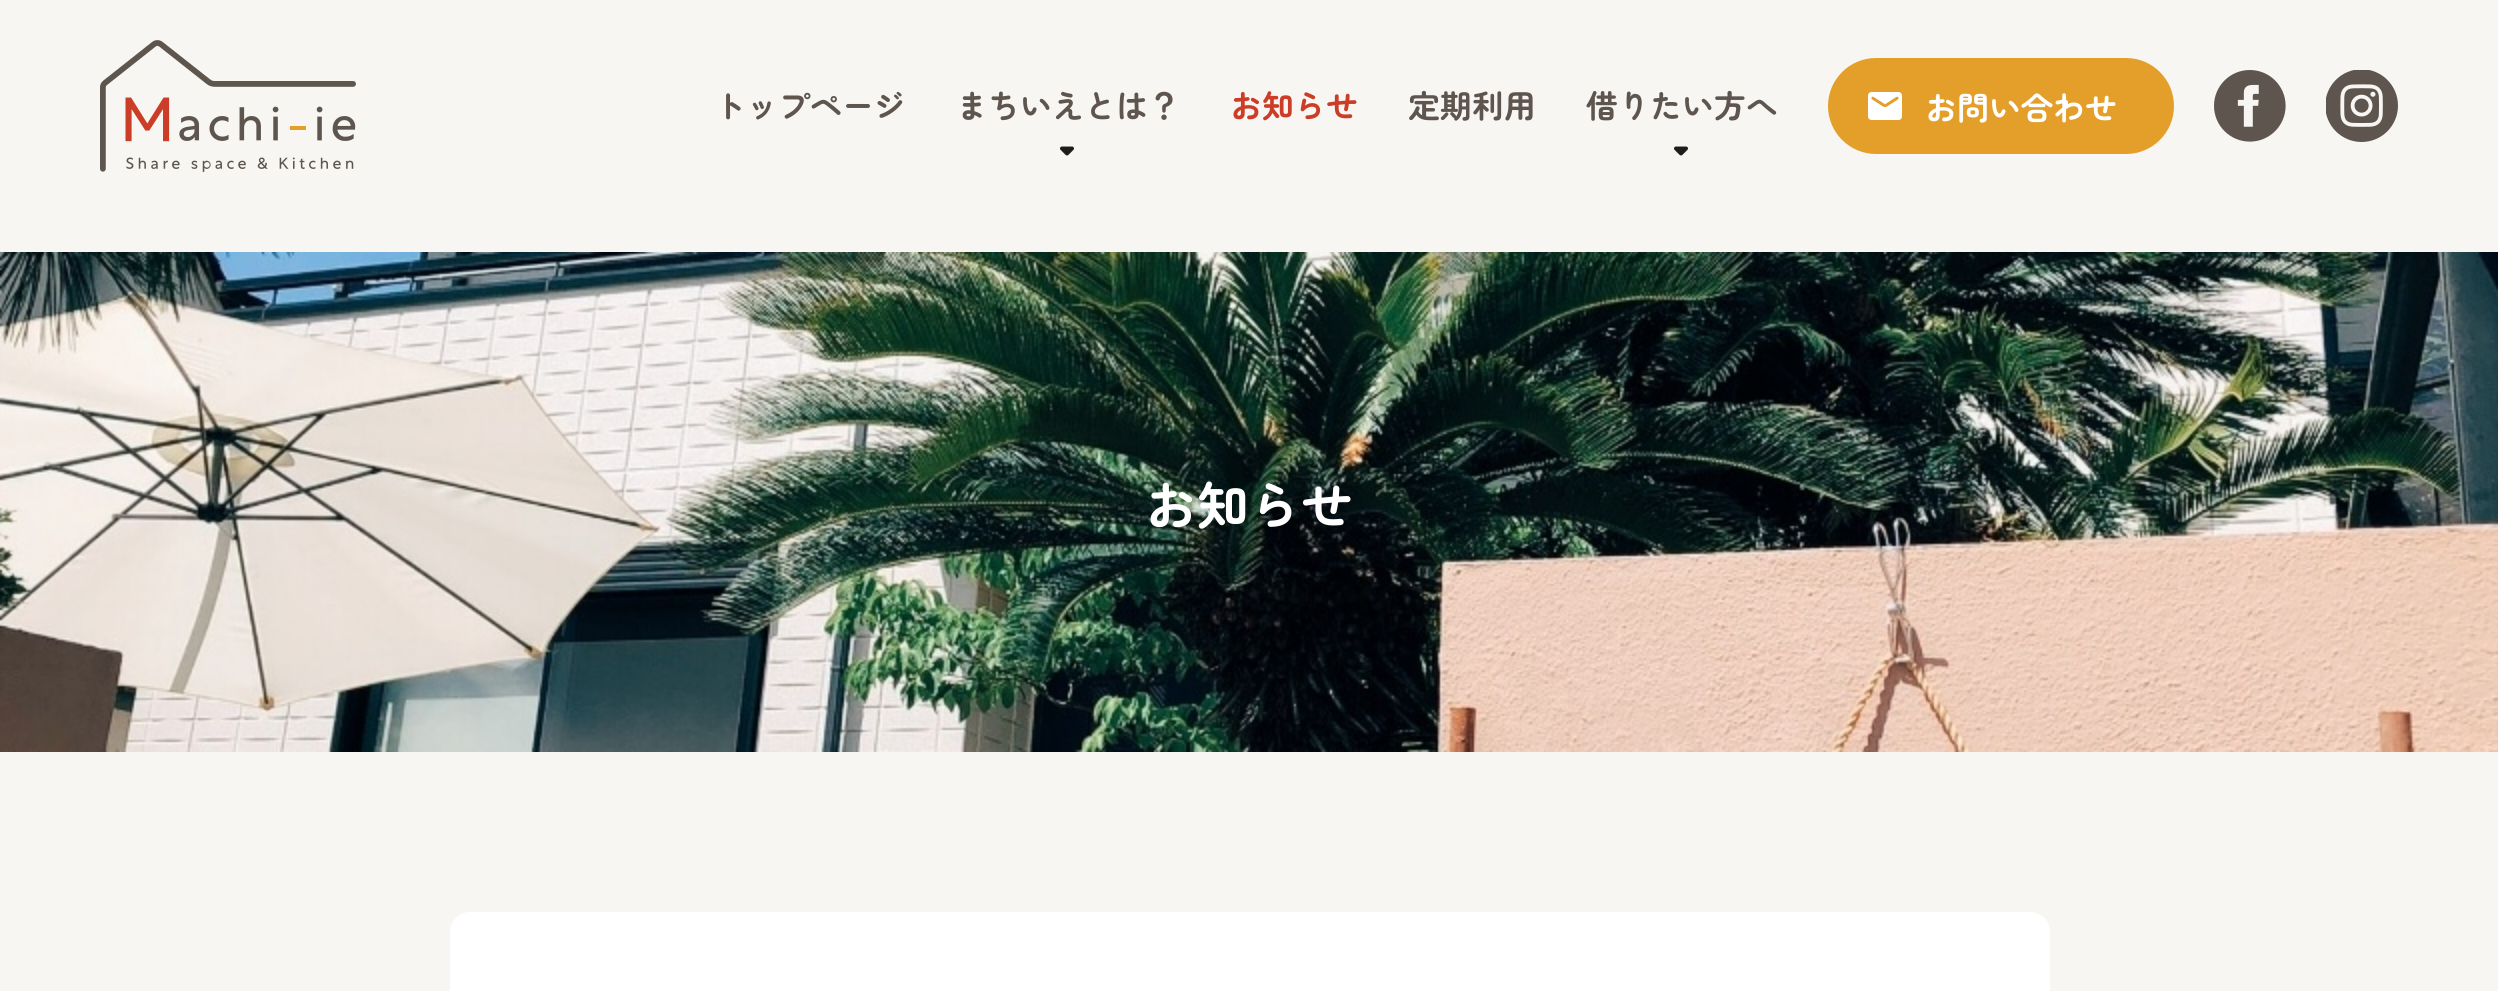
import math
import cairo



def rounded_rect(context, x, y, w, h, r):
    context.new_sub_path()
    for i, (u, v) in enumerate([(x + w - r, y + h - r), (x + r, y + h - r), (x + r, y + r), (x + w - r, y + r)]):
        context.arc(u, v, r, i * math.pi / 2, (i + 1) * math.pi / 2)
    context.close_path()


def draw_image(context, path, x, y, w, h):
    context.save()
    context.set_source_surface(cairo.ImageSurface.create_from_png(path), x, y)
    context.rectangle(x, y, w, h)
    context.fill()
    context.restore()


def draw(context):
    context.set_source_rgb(247 / 255, 246 / 255, 242 / 255)
    context.paint()
    draw_image(context, "images/1.png", 100, 40, 256, 132)
    draw_image(context, "images/2.png", 1060, 146, 14, 10)
    draw_image(context, "images/2.png", 1674, 146, 14, 10)
    context.set_source_rgb(227 / 255, 159 / 255, 42 / 255)
    rounded_rect(context, 1828, 58, 346, 96, 48)
    context.fill()
    draw_image(context, "images/3.png", 1868, 92, 34, 28)
    draw_image(context, "images/4.png", 2214, 70, 72, 72)
    draw_image(context, "images/5.png", 2326, 70, 72, 72)
    draw_image(context, "images/6.png", 0, 252, 2498, 500)
    context.set_source_rgb(1, 1, 1)
    rounded_rect(context, 450, 912, 1600, 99, 20)
    context.fill()
    context.select_font_face("Zen Maru Gothic", cairo.FontSlant.NORMAL, cairo.FontWeight.BOLD)
    context.set_font_size(32)
    context.set_source_rgb(94 / 255, 85 / 255, 78 / 255)
    context.move_to(714, 118)
    context.show_text("トップページ")
    context.move_to(956, 118)
    context.show_text("まちいえとは？")
    context.set_source_rgb(204 / 255, 61 / 255, 40 / 255)
    context.move_to(1230, 118)
    context.show_text("お知らせ")
    context.set_source_rgb(94 / 255, 85 / 255, 78 / 255)
    context.move_to(1408, 118)
    context.show_text("定期利用")
    context.move_to(1586, 118)
    context.show_text("借りたい方へ")
    context.set_source_rgb(1, 1, 1)
    context.move_to(1925, 120)
    context.show_text("お問い合わせ")
    context.set_font_size(52)
    context.move_to(1145, 525)
    context.show_text("お知らせ")


surface = cairo.ImageSurface(cairo.Format.RGB24, 2498, 991)
context = cairo.Context(surface)
options = cairo.FontOptions()
options.set_hint_metrics(cairo.HintMetrics.OFF)
options.set_hint_style(cairo.HintStyle.NONE)
context.set_font_options(options)
context.set_miter_limit(4)
draw(context)
surface.write_to_png("out.png")
